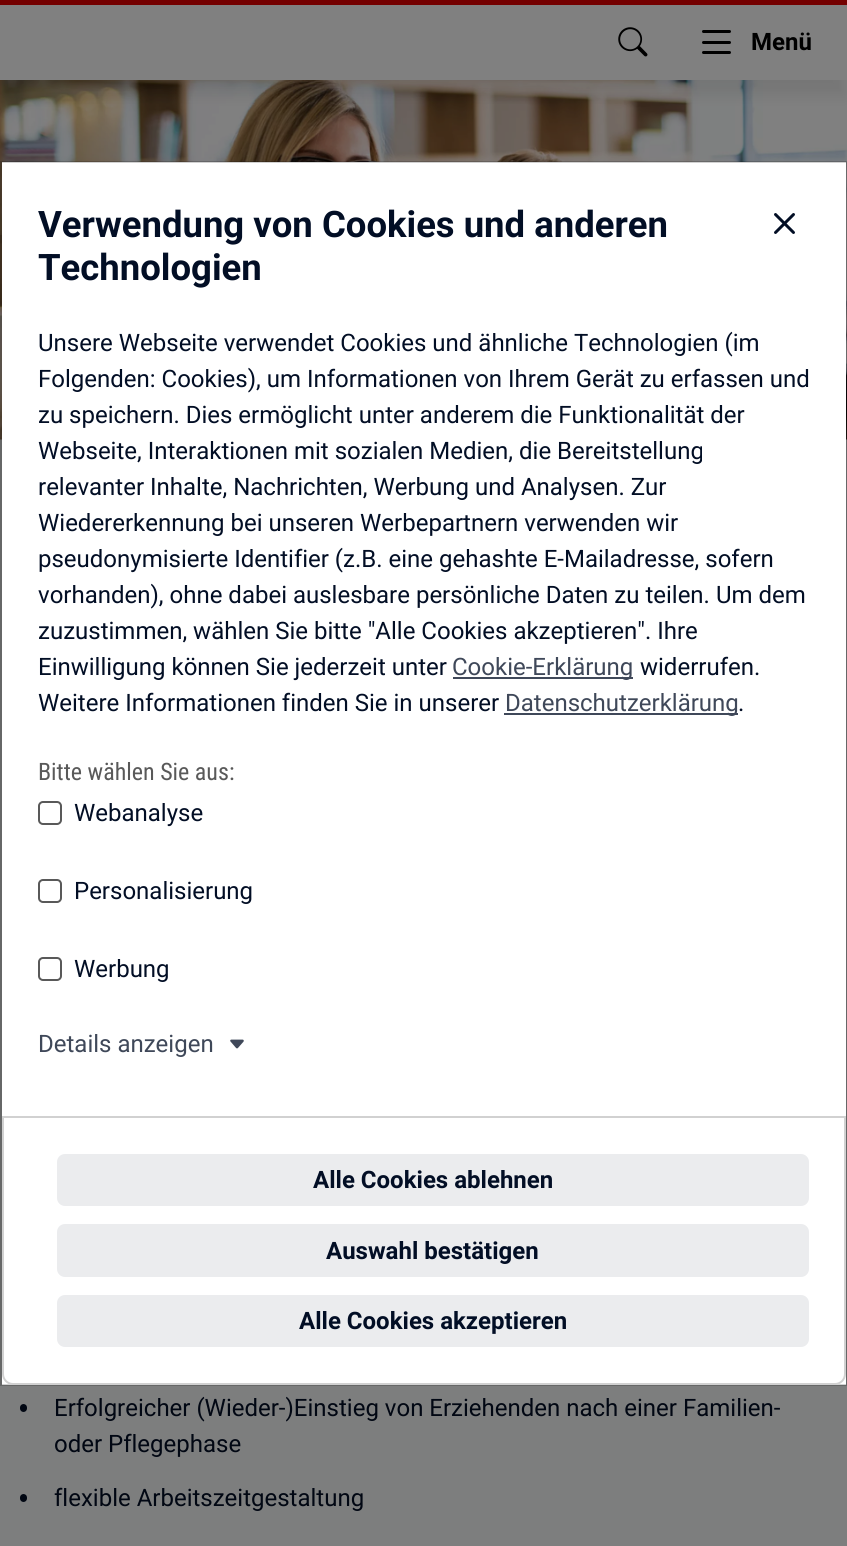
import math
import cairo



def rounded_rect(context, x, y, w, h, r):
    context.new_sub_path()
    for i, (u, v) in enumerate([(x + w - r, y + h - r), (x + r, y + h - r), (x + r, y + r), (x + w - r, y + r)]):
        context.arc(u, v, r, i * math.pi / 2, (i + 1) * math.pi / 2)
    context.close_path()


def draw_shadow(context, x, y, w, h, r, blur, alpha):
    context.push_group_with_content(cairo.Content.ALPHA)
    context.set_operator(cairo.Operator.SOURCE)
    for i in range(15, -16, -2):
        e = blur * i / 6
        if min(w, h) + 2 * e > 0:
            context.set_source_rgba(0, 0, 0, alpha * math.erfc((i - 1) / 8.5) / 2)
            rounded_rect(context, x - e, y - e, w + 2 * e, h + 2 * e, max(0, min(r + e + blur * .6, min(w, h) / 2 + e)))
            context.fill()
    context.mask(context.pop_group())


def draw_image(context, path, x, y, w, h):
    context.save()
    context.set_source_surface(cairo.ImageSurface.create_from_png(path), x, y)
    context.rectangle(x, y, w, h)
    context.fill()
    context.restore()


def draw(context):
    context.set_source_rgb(125 / 255, 126 / 255, 126 / 255)
    context.paint()
    draw_image(context, "images/4.png", 0, 80, 847, 360)
    context.set_source_rgb(0, 0, 0)
    draw_shadow(context, 3, 21, 842, 74, 0, 7.5, 0.08)
    context.set_source_rgb(128 / 255, 128 / 255, 128 / 255)
    context.rectangle(0, 5, 847, 75)
    context.fill()
    context.set_source_rgb(116 / 255, 0, 0)
    context.rectangle(0, 0, 847, 5)
    context.fill()
    draw_image(context, "images/1.png", 618, 27, 30, 30)
    context.set_source_rgb(0, 0, 0)
    rounded_rect(context, 702, 41, 29, 3, 1.5)
    context.fill()
    rounded_rect(context, 702, 30, 29, 3, 1.5)
    context.fill()
    rounded_rect(context, 702, 51, 29, 3, 1.5)
    context.fill()
    context.set_source_rgb(1, 1, 1)
    context.rectangle(2, 162, 844, 1223)
    context.fill()
    context.rectangle(1, 162, 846, 1223)
    context.set_source_rgba(0, 0, 0, 0.18)
    context.stroke()
    draw_image(context, "images/2.png", 774, 213, 21, 21)
    context.set_source_rgb(63 / 255, 72 / 255, 89 / 255)
    context.rectangle(453, 677, 180, 2)
    context.fill()
    context.rectangle(504, 713, 234, 2)
    context.fill()
    rounded_rect(context, 39, 802, 22, 22, 4)
    context.set_source_rgb(89 / 255, 89 / 255, 89 / 255)
    context.stroke()
    rounded_rect(context, 39, 880, 22, 22, 4)
    context.stroke()
    rounded_rect(context, 39, 958, 22, 22, 4)
    context.stroke()
    draw_image(context, "images/3.png", 230, 1039, 14, 10)
    context.set_source_rgb(1, 1, 1)
    context.new_path()
    context.move_to(2, 1116)
    context.line_to(846, 1116)
    context.line_to(846, 1374)
    context.curve_to(846, 1380, 841, 1385, 835, 1385)
    context.line_to(13, 1385)
    context.curve_to(7, 1385, 2, 1380, 2, 1374)
    context.close_path()
    context.fill()
    context.new_path()
    context.move_to(3, 1117)
    context.line_to(845, 1117)
    context.line_to(845, 1374)
    context.curve_to(845, 1379.5, 840.5, 1384, 835, 1384)
    context.line_to(13, 1384)
    context.curve_to(7.5, 1384, 3, 1379.5, 3, 1374)
    context.close_path()
    context.set_source_rgba(0, 0, 0, 0.18)
    context.stroke()
    context.set_source_rgb(235 / 255, 236 / 255, 238 / 255)
    rounded_rect(context, 57, 1154, 752, 52, 8)
    context.fill()
    rounded_rect(context, 57, 1224, 752, 53, 8)
    context.fill()
    rounded_rect(context, 57, 1295, 752, 52, 8)
    context.fill()
    context.set_source_rgb(1 / 255, 7 / 255, 19 / 255)
    rounded_rect(context, 20, 1404, 7, 8, 3.5)
    context.fill()
    rounded_rect(context, 20, 1494, 7, 8, 3.5)
    context.fill()
    context.select_font_face("Roboto", cairo.FontSlant.NORMAL, cairo.FontWeight.BOLD)
    context.set_font_size(24)
    context.set_source_rgb(0, 0, 0)
    context.move_to(751, 50)
    context.show_text("Menü")
    context.select_font_face("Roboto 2", cairo.FontSlant.NORMAL, cairo.FontWeight.BOLD)
    context.set_font_size(36.5)
    context.set_source_rgb(2 / 255, 14 / 255, 37 / 255)
    context.move_to(38, 237)
    context.show_text("Verwendung von Cookies und anderen")
    context.move_to(38, 280)
    context.show_text("Technologien")
    context.select_font_face("Roboto")
    context.set_font_size(24)
    context.move_to(38, 351)
    context.show_text("Unsere Webseite verwendet Cookies und ähnliche Technologien (im")
    context.move_to(38, 387)
    context.show_text("Folgenden: Cookies), um Informationen von Ihrem Gerät zu erfassen und")
    context.move_to(38, 423)
    context.show_text("zu speichern. Dies ermöglicht unter anderem die Funktionalität der")
    context.move_to(38, 459)
    context.show_text("Webseite, Interaktionen mit sozialen Medien, die Bereitstellung")
    context.move_to(38, 495)
    context.show_text("relevanter Inhalte, Nachrichten, Werbung und Analysen. Zur")
    context.move_to(38, 531)
    context.show_text("Wiedererkennung bei unseren Werbepartnern verwenden wir")
    context.move_to(38, 567)
    context.show_text("pseudonymisierte Identifier (z.B. eine gehashte E-Mailadresse, sofern")
    context.move_to(38, 603)
    context.show_text("vorhanden), ohne dabei auslesbare persönliche Daten zu teilen. Um dem")
    context.move_to(38, 639)
    context.show_text("zuzustimmen, wählen Sie bitte \"Alle Cookies akzeptieren\". Ihre")
    context.move_to(38, 675)
    context.show_text("Einwilligung können Sie jederzeit unter")
    context.set_source_rgb(63 / 255, 72 / 255, 89 / 255)
    context.move_to(452, 675)
    context.show_text("Cookie-Erklärung")
    context.set_source_rgb(2 / 255, 14 / 255, 37 / 255)
    context.move_to(640, 675)
    context.show_text("widerrufen.")
    context.move_to(38, 711)
    context.show_text("Weitere Informationen finden Sie in unserer")
    context.set_source_rgb(63 / 255, 72 / 255, 89 / 255)
    context.move_to(505, 711)
    context.show_text("Datenschutzerklärung")
    context.set_source_rgb(2 / 255, 14 / 255, 37 / 255)
    context.move_to(738, 711)
    context.show_text(".")
    context.select_font_face("Roboto Condensed")
    context.set_source_rgb(89 / 255, 89 / 255, 89 / 255)
    context.move_to(38, 780)
    context.show_text("Bitte wählen Sie aus:")
    context.select_font_face("Roboto")
    context.set_source_rgb(2 / 255, 14 / 255, 37 / 255)
    context.move_to(74, 821)
    context.show_text("Webanalyse")
    context.move_to(74, 899)
    context.show_text("Personalisierung")
    context.move_to(74, 977)
    context.show_text("Werbung")
    context.set_source_rgb(63 / 255, 72 / 255, 89 / 255)
    context.move_to(38, 1052)
    context.show_text("Details anzeigen")
    context.select_font_face("Roboto", cairo.FontSlant.NORMAL, cairo.FontWeight.BOLD)
    context.set_source_rgb(2 / 255, 14 / 255, 37 / 255)
    context.move_to(313, 1188)
    context.show_text("Alle Cookies ablehnen")
    context.move_to(326, 1259)
    context.show_text("Auswahl bestätigen")
    context.move_to(299, 1329)
    context.show_text("Alle Cookies akzeptieren")
    context.select_font_face("Roboto")
    context.set_source_rgb(1 / 255, 7 / 255, 19 / 255)
    context.move_to(54, 1416)
    context.show_text("Erfolgreicher (Wieder-)Einstieg von Erziehenden nach einer Familien-")
    context.move_to(54, 1452)
    context.show_text("oder Pflegephase")
    context.move_to(54, 1506)
    context.show_text("flexible Arbeitszeitgestaltung")


surface = cairo.ImageSurface(cairo.Format.RGB24, 847, 1546)
context = cairo.Context(surface)
options = cairo.FontOptions()
options.set_hint_metrics(cairo.HintMetrics.OFF)
options.set_hint_style(cairo.HintStyle.NONE)
context.set_font_options(options)
context.set_miter_limit(4)
draw(context)
surface.write_to_png("out.png")
